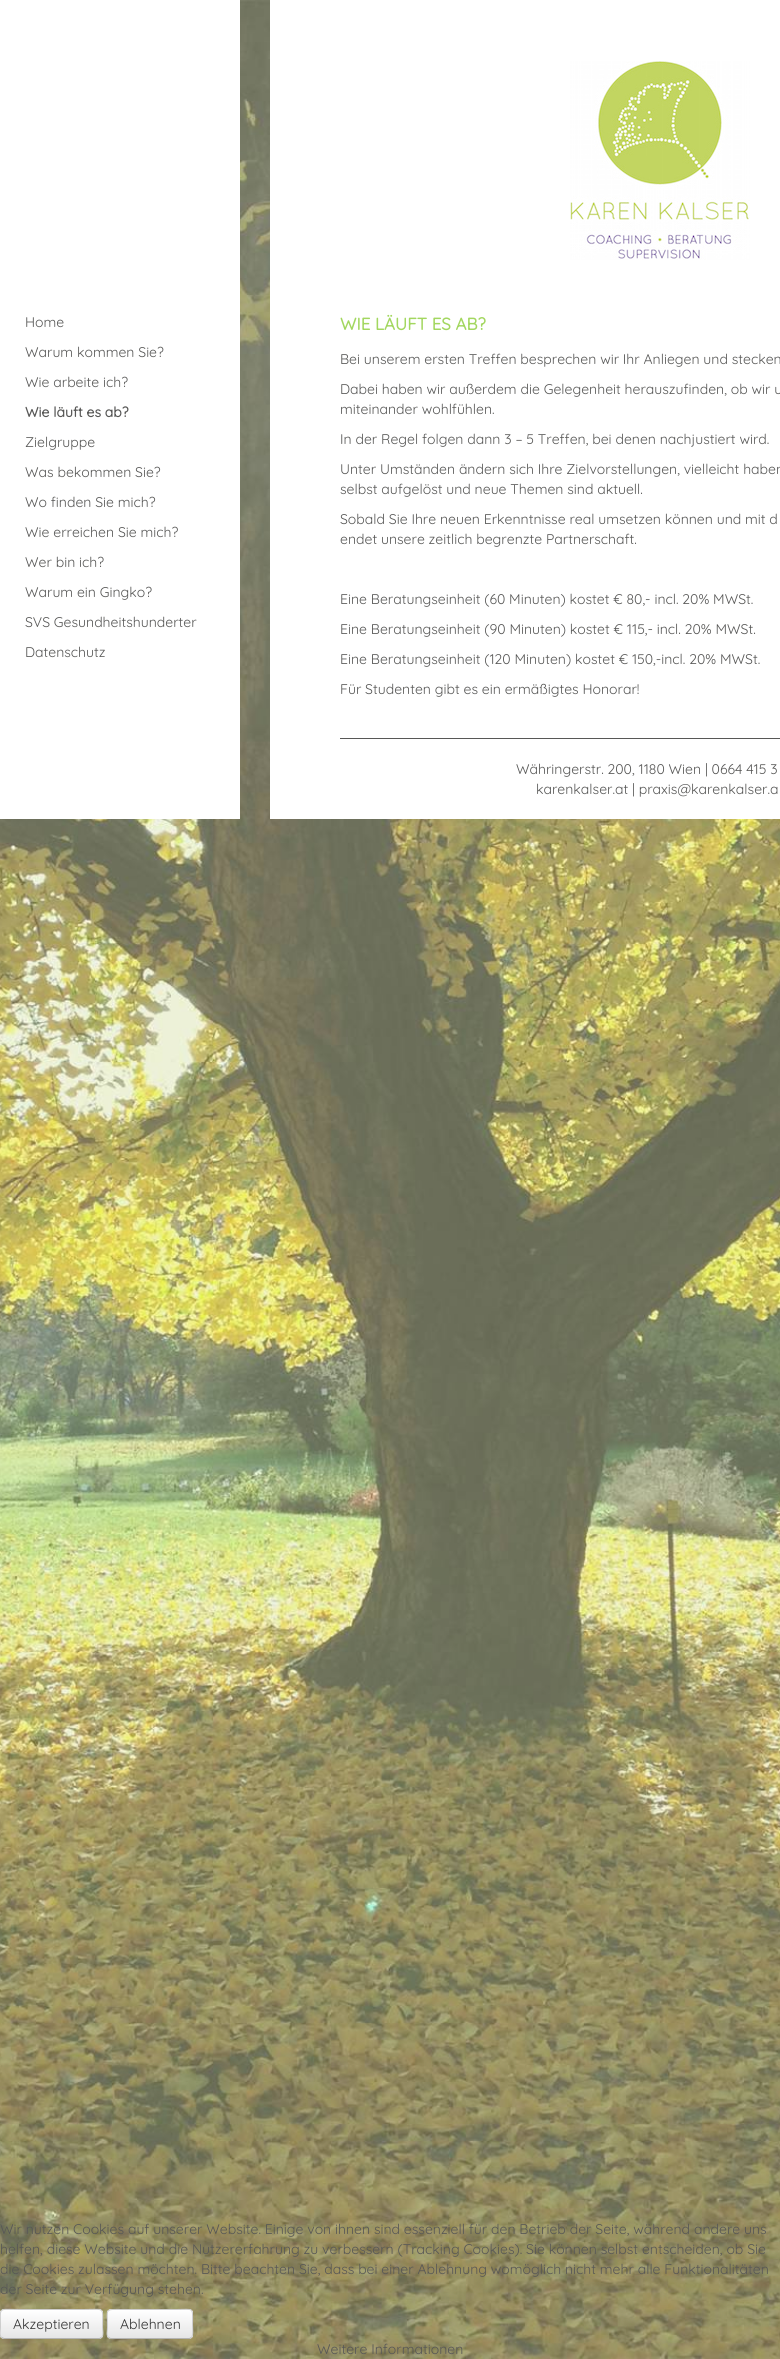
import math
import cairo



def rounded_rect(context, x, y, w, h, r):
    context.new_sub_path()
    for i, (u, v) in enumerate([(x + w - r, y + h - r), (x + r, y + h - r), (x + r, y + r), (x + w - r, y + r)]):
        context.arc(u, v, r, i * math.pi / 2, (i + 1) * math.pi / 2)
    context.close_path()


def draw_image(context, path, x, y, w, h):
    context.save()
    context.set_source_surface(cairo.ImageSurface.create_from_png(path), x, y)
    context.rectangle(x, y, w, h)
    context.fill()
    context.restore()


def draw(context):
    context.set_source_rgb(1, 1, 1)
    context.paint()
    draw_image(context, "images/1.png", 0, 0, 780, 2359)
    context.set_source_rgb(1, 1, 1)
    context.rectangle(0, 0, 240, 819)
    context.fill()
    context.rectangle(270, 0, 510, 819)
    context.fill()
    draw_image(context, "images/2.png", 570, 61, 180, 199)
    context.set_source_rgb(87 / 255, 87 / 255, 86 / 255)
    context.rectangle(340, 738, 440, 1)
    context.fill()
    context.set_source_rgb(245 / 255, 245 / 255, 245 / 255)
    rounded_rect(context, 0, 2309, 103, 30, 4)
    context.fill()
    context.save()
    rounded_rect(context, 0, 2309, 103, 30, 4)
    context.clip()
    gradient = cairo.LinearGradient(52, 2310, 52, 2338)
    gradient.add_color_stop_rgba(0, 1, 1, 1, 1)
    gradient.add_color_stop_rgba(1, 230 / 255, 230 / 255, 230 / 255, 1)
    context.set_source(gradient)
    context.rectangle(0, 2310, 103, 28)
    context.fill()
    context.restore()
    context.new_path()
    context.move_to(101.5, 2337.5)
    context.line_to(99.5, 2338.5)
    context.line_to(20, 2338.5)
    context.line_to(4, 2338.5)
    context.line_to(1.5, 2337.5)
    context.set_source_rgb(179 / 255, 179 / 255, 179 / 255)
    context.set_line_width(1)
    context.stroke()
    context.new_path()
    context.move_to(1.5, 2337.5)
    context.curve_to(-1, 2335, 0.5, 2330.5, 0.5, 2327.5)
    context.curve_to(0.5, 2306, -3, 2309.5, 20, 2309.5)
    context.line_to(83, 2309.5)
    context.curve_to(106, 2309.5, 102.5, 2306, 102.5, 2327.5)
    context.curve_to(102.5, 2330.5, 104, 2335, 101.5, 2337.5)
    context.set_source_rgb(204 / 255, 204 / 255, 204 / 255)
    context.stroke()
    context.set_source_rgb(245 / 255, 245 / 255, 245 / 255)
    rounded_rect(context, 107, 2309, 86, 30, 4)
    context.fill()
    context.save()
    rounded_rect(context, 107, 2309, 86, 30, 4)
    context.clip()
    gradient = cairo.LinearGradient(150, 2310, 150, 2338)
    gradient.add_color_stop_rgba(0, 1, 1, 1, 1)
    gradient.add_color_stop_rgba(1, 230 / 255, 230 / 255, 230 / 255, 1)
    context.set_source(gradient)
    context.rectangle(107, 2310, 86, 28)
    context.fill()
    context.restore()
    context.new_path()
    context.move_to(191.5, 2337.5)
    context.line_to(189.5, 2338.5)
    context.line_to(110.5, 2338.5)
    context.line_to(108.5, 2337.5)
    context.set_source_rgb(179 / 255, 179 / 255, 179 / 255)
    context.stroke()
    context.new_path()
    context.move_to(108.5, 2337.5)
    context.curve_to(106, 2335, 107.5, 2330.5, 107.5, 2327.5)
    context.curve_to(107.5, 2307.5, 103.5, 2309.5, 124, 2309.5)
    context.line_to(176, 2309.5)
    context.curve_to(194.5, 2309.5, 192.5, 2306.5, 192.5, 2324)
    context.curve_to(192.5, 2327, 193.5, 2335.5, 191.5, 2337.5)
    context.set_source_rgb(204 / 255, 204 / 255, 204 / 255)
    context.stroke()
    context.select_font_face("Quicksand Light")
    context.set_font_size(14)
    context.set_source_rgb(87 / 255, 87 / 255, 86 / 255)
    context.move_to(25, 327)
    context.show_text("Home")
    context.move_to(25, 357)
    context.show_text("Warum kommen Sie?")
    context.move_to(25, 387)
    context.show_text("Wie arbeite ich?")
    context.select_font_face("Quicksand", cairo.FontSlant.NORMAL, cairo.FontWeight.BOLD)
    context.move_to(25, 417)
    context.show_text("Wie läuft es ab?")
    context.select_font_face("Quicksand Light")
    context.move_to(25, 447)
    context.show_text("Zielgruppe")
    context.move_to(25, 477)
    context.show_text("Was bekommen Sie?")
    context.move_to(25, 507)
    context.show_text("Wo finden Sie mich?")
    context.move_to(25, 537)
    context.show_text("Wie erreichen Sie mich?")
    context.move_to(25, 567)
    context.show_text("Wer bin ich?")
    context.move_to(25, 597)
    context.show_text("Warum ein Gingko?")
    context.move_to(25, 627)
    context.show_text("SVS Gesundheitshunderter")
    context.move_to(25, 657)
    context.show_text("Datenschutz")
    context.select_font_face("Quicksand", cairo.FontSlant.NORMAL, cairo.FontWeight.BOLD)
    context.set_font_size(17)
    context.set_source_rgb(163 / 255, 215 / 255, 96 / 255)
    context.move_to(340, 330)
    context.show_text("WIE LÄUFT ES AB?")
    context.select_font_face("Quicksand Light")
    context.set_font_size(14)
    context.set_source_rgb(87 / 255, 87 / 255, 86 / 255)
    context.move_to(340, 364)
    context.show_text("Bei unserem ersten Treffen besprechen wir Ihr Anliegen und stecken")
    context.move_to(340, 394)
    context.show_text("Dabei haben wir außerdem die Gelegenheit herauszufinden, ob wir u")
    context.move_to(340, 414)
    context.show_text("miteinander wohlfühlen.")
    context.move_to(340, 444)
    context.show_text("In der Regel folgen dann 3 – 5 Treffen, bei denen nachjustiert wird.")
    context.move_to(340, 474)
    context.show_text("Unter Umständen ändern sich Ihre Zielvorstellungen, vielleicht haben")
    context.move_to(340, 494)
    context.show_text("selbst aufgelöst und neue Themen sind aktuell.")
    context.move_to(340, 524)
    context.show_text("Sobald Sie Ihre neuen Erkenntnisse real umsetzen können und mit d")
    context.move_to(340, 544)
    context.show_text("endet unsere zeitlich begrenzte Partnerschaft.")
    context.move_to(340, 604)
    context.show_text("Eine Beratungseinheit (60 Minuten) kostet € 80,- incl. 20% MWSt.")
    context.move_to(340, 634)
    context.show_text("Eine Beratungseinheit (90 Minuten) kostet € 115,- incl. 20% MWSt.")
    context.move_to(340, 664)
    context.show_text("Eine Beratungseinheit (120 Minuten) kostet € 150,-incl. 20% MWSt.")
    context.move_to(340, 694)
    context.show_text("Für Studenten gibt es ein ermäßigtes Honorar!")
    context.move_to(516, 774)
    context.show_text("Währingerstr. 200, 1180 Wien | 0664 415 3")
    context.move_to(536, 794)
    context.show_text("karenkalser.at | praxis@karenkalser.a")
    context.move_to(0, 2234)
    context.show_text("Wir nutzen Cookies auf unserer Website. Einige von ihnen sind essenziell für den Betrieb der Seite, während andere uns")
    context.move_to(0, 2254)
    context.show_text("helfen, diese Website und die Nutzererfahrung zu verbessern (Tracking Cookies). Sie können selbst entscheiden, ob Sie")
    context.move_to(0, 2274)
    context.show_text("die Cookies zulassen möchten. Bitte beachten Sie, dass bei einer Ablehnung womöglich nicht mehr alle Funktionalitäten")
    context.move_to(0, 2294)
    context.show_text("der Seite zur Verfügung stehen.")
    context.set_source_rgb(51 / 255, 51 / 255, 51 / 255)
    context.move_to(13, 2329)
    context.show_text("Akzeptieren")
    context.move_to(120, 2329)
    context.show_text("Ablehnen")
    context.set_source_rgb(87 / 255, 87 / 255, 86 / 255)
    context.move_to(317, 2354)
    context.show_text("Weitere Informationen")


surface = cairo.ImageSurface(cairo.Format.RGB24, 780, 2359)
context = cairo.Context(surface)
options = cairo.FontOptions()
options.set_hint_metrics(cairo.HintMetrics.OFF)
options.set_hint_style(cairo.HintStyle.NONE)
context.set_font_options(options)
context.set_miter_limit(4)
draw(context)
surface.write_to_png("out.png")
